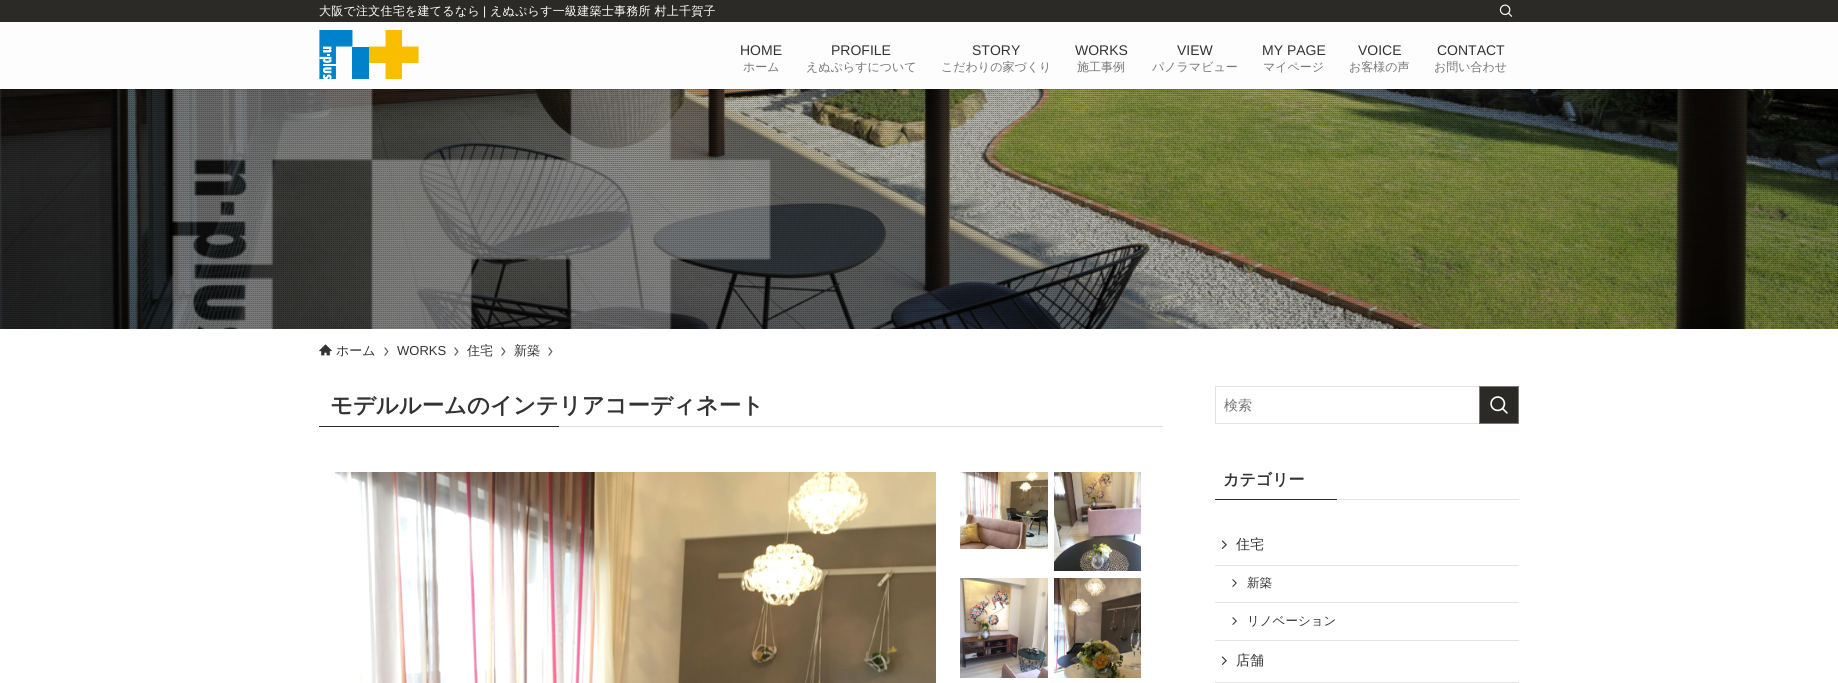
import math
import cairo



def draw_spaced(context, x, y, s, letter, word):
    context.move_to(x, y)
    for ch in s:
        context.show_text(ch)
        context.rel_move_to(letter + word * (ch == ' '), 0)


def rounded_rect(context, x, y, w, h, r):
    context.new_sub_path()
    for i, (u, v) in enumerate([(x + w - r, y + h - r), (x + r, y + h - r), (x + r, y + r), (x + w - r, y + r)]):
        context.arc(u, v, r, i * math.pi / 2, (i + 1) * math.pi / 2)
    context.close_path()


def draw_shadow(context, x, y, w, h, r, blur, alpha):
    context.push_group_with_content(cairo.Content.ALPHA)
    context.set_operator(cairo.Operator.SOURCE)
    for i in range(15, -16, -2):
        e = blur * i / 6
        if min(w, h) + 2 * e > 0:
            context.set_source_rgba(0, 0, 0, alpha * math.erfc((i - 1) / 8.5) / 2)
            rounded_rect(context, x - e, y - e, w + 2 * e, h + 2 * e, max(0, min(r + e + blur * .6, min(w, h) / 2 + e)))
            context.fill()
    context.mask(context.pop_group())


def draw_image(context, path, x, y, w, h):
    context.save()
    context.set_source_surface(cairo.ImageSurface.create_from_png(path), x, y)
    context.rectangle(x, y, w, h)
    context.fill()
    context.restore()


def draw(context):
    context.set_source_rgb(1, 1, 1)
    context.paint()
    draw_image(context, "images/3.png", 0, 89, 1838, 240)
    draw_image(context, "images/4.png", 0, 89, 1838, 240)
    context.set_source_rgb(0, 0, 0)
    draw_shadow(context, 0, 1, 1838, 89, 0, 2, 0.12)
    context.set_source_rgb(253 / 255, 253 / 255, 253 / 255)
    context.rectangle(0, 22, 1838, 67)
    context.fill()
    context.set_source_rgb(43 / 255, 42 / 255, 38 / 255)
    context.rectangle(0, 0, 1838, 22)
    context.fill()
    draw_image(context, "images/1.png", 1499, 4, 14, 13)
    draw_image(context, "images/2.png", 319, 30, 100, 49)
    draw_image(context, "images/5.png", 319, 344, 13, 12)
    context.set_source_rgb(92 / 255, 92 / 255, 92 / 255)
    context.new_path()
    context.move_to(385.5, 347.5)
    context.line_to(384, 347.5)
    context.line_to(387, 351.5)
    context.line_to(384, 355.5)
    context.line_to(385.5, 355.5)
    context.line_to(388.5, 351.5)
    context.close_path()
    context.fill()
    context.new_path()
    context.move_to(455.5, 347.5)
    context.line_to(454, 347.5)
    context.line_to(457, 351.5)
    context.line_to(454, 355.5)
    context.line_to(455.5, 355.5)
    context.line_to(458.5, 351.5)
    context.close_path()
    context.fill()
    context.new_path()
    context.move_to(502.5, 347.5)
    context.line_to(501, 347.5)
    context.line_to(504, 351.5)
    context.line_to(501, 355.5)
    context.line_to(502.5, 355.5)
    context.line_to(505.5, 351.5)
    context.close_path()
    context.fill()
    context.new_path()
    context.move_to(549.5, 347.5)
    context.line_to(548, 347.5)
    context.line_to(551, 351.5)
    context.line_to(548, 355.5)
    context.line_to(549.5, 355.5)
    context.line_to(552.5, 351.5)
    context.close_path()
    context.fill()
    context.set_source_rgb(221 / 255, 221 / 255, 221 / 255)
    context.rectangle(559, 426, 604, 1)
    context.fill()
    context.set_source_rgb(43 / 255, 42 / 255, 38 / 255)
    context.rectangle(319, 426, 240, 1)
    context.fill()
    draw_image(context, "images/6.png", 335, 472, 601, 211)
    draw_image(context, "images/7.png", 960, 472, 88, 77)
    draw_image(context, "images/8.png", 1054, 472, 87, 99)
    draw_image(context, "images/9.png", 960, 578, 88, 100)
    draw_image(context, "images/10.png", 1054, 578, 87, 100)
    context.rectangle(1215.5, 386.5, 303, 37)
    context.set_source_rgb(227 / 255, 227 / 255, 227 / 255)
    context.set_line_width(1)
    context.stroke()
    context.set_source_rgb(43 / 255, 42 / 255, 38 / 255)
    context.rectangle(1479.5, 386.5, 39, 37)
    context.fill_preserve()
    context.set_source_rgb(121 / 255, 121 / 255, 119 / 255)
    context.stroke()
    draw_image(context, "images/11.png", 1490, 396, 18, 18)
    context.set_source_rgb(43 / 255, 42 / 255, 38 / 255)
    context.rectangle(1215, 499, 122, 1)
    context.fill()
    context.set_source_rgb(227 / 255, 227 / 255, 227 / 255)
    context.rectangle(1337, 499, 182, 1)
    context.fill()
    context.rectangle(1215, 565, 304, 1)
    context.fill()
    draw_image(context, "images/12.png", 1221, 540, 6, 9)
    context.rectangle(1215, 602, 304, 1)
    context.fill()
    draw_image(context, "images/13.png", 1232, 579, 5, 8)
    context.rectangle(1215, 640, 304, 1)
    context.fill()
    draw_image(context, "images/13.png", 1232, 617, 5, 8)
    context.rectangle(1215, 682, 304, 1)
    context.fill()
    draw_image(context, "images/12.png", 1221, 656, 6, 9)
    context.select_font_face("WenQuanYi Zen Hei Medium")
    context.set_font_size(12)
    context.set_source_rgb(1, 1, 1)
    draw_spaced(context, 319, 15, "大阪で注文住宅を建てるなら", 0.25, 0)
    context.select_font_face("Liberation Sans")
    draw_spaced(context, 483, 15, "|", 0.25, 0)
    context.select_font_face("WenQuanYi Zen Hei Medium")
    draw_spaced(context, 490, 15, "えぬぷらす一級建築士事務所 村上千賀子", 0.25, 0)
    context.select_font_face("Liberation Sans")
    context.set_font_size(14)
    context.set_source_rgb(51 / 255, 51 / 255, 51 / 255)
    context.move_to(740, 55)
    context.show_text("HOME")
    context.select_font_face("WenQuanYi Zen Hei Medium")
    context.set_font_size(12)
    context.set_source_rgb(117 / 255, 117 / 255, 117 / 255)
    context.move_to(743, 71)
    context.show_text("ホーム")
    context.select_font_face("Liberation Sans")
    context.set_font_size(14)
    context.set_source_rgb(51 / 255, 51 / 255, 51 / 255)
    context.move_to(831, 55)
    context.show_text("PROFILE")
    context.select_font_face("WenQuanYi Zen Hei Medium")
    context.set_font_size(12)
    context.set_source_rgb(117 / 255, 117 / 255, 117 / 255)
    context.move_to(806, 71)
    context.show_text("えぬぷらすについて")
    context.select_font_face("Liberation Sans")
    context.set_font_size(14)
    context.set_source_rgb(51 / 255, 51 / 255, 51 / 255)
    context.move_to(972, 55)
    context.show_text("STORY")
    context.select_font_face("WenQuanYi Zen Hei Medium")
    context.set_font_size(12)
    context.set_source_rgb(117 / 255, 117 / 255, 117 / 255)
    context.move_to(941, 71)
    context.show_text("こだわりの家づくり")
    context.select_font_face("Liberation Sans")
    context.set_font_size(14)
    context.set_source_rgb(51 / 255, 51 / 255, 51 / 255)
    context.move_to(1075, 55)
    context.show_text("WORKS")
    context.select_font_face("WenQuanYi Zen Hei Medium")
    context.set_font_size(12)
    context.set_source_rgb(117 / 255, 117 / 255, 117 / 255)
    context.move_to(1077, 71)
    context.show_text("施工事例")
    context.select_font_face("Liberation Sans")
    context.set_font_size(14)
    context.set_source_rgb(51 / 255, 51 / 255, 51 / 255)
    context.move_to(1177, 55)
    context.show_text("VIEW")
    context.select_font_face("WenQuanYi Zen Hei Medium")
    context.set_font_size(12)
    context.set_source_rgb(117 / 255, 117 / 255, 117 / 255)
    context.move_to(1152, 71)
    context.show_text("パノラマビュー")
    context.select_font_face("Liberation Sans")
    context.set_font_size(14)
    context.set_source_rgb(51 / 255, 51 / 255, 51 / 255)
    context.move_to(1262, 55)
    context.show_text("MY PAGE")
    context.select_font_face("WenQuanYi Zen Hei Medium")
    context.set_font_size(12)
    context.set_source_rgb(117 / 255, 117 / 255, 117 / 255)
    context.move_to(1263, 71)
    context.show_text("マイページ")
    context.select_font_face("Liberation Sans")
    context.set_font_size(14)
    context.set_source_rgb(51 / 255, 51 / 255, 51 / 255)
    context.move_to(1358, 55)
    context.show_text("VOICE")
    context.select_font_face("WenQuanYi Zen Hei Medium")
    context.set_font_size(12)
    context.set_source_rgb(117 / 255, 117 / 255, 117 / 255)
    context.move_to(1349, 71)
    context.show_text("お客様の声")
    context.select_font_face("Liberation Sans")
    context.set_font_size(14)
    context.set_source_rgb(51 / 255, 51 / 255, 51 / 255)
    context.move_to(1437, 55)
    context.show_text("CONTACT")
    context.select_font_face("WenQuanYi Zen Hei Medium")
    context.set_font_size(12)
    context.set_source_rgb(117 / 255, 117 / 255, 117 / 255)
    context.move_to(1434, 71)
    context.show_text("お問い合わせ")
    context.set_font_size(13)
    context.set_source_rgb(51 / 255, 51 / 255, 51 / 255)
    context.move_to(336, 355)
    context.show_text("ホーム")
    context.select_font_face("Liberation Sans")
    context.move_to(397, 355)
    context.show_text("WORKS")
    context.select_font_face("WenQuanYi Zen Hei Medium")
    context.move_to(467, 355)
    context.show_text("住宅")
    context.move_to(514, 355)
    context.show_text("新築")
    context.select_font_face("WenQuanYi Zen Hei", cairo.FontSlant.NORMAL, cairo.FontWeight.BOLD)
    context.set_font_size(22.4)
    context.move_to(330, 413)
    context.show_text("モデルルームのインテリアコーディネート")
    context.select_font_face("WenQuanYi Zen Hei Medium")
    context.set_font_size(14)
    context.set_source_rgb(117 / 255, 117 / 255, 117 / 255)
    context.move_to(1224, 410)
    context.show_text("検索")
    context.select_font_face("WenQuanYi Zen Hei", cairo.FontSlant.NORMAL, cairo.FontWeight.BOLD)
    context.set_font_size(16)
    context.set_source_rgb(51 / 255, 51 / 255, 51 / 255)
    context.move_to(1223, 485)
    context.show_text("カテゴリー")
    context.select_font_face("WenQuanYi Zen Hei Medium")
    context.set_font_size(14)
    context.move_to(1236, 549)
    context.show_text("住宅")
    context.set_font_size(12.5)
    context.move_to(1247, 587)
    context.show_text("新築")
    context.move_to(1247, 625)
    context.show_text("リノベーション")
    context.set_font_size(14)
    context.move_to(1236, 665)
    context.show_text("店舗")


surface = cairo.ImageSurface(cairo.Format.RGB24, 1838, 683)
context = cairo.Context(surface)
options = cairo.FontOptions()
options.set_hint_metrics(cairo.HintMetrics.OFF)
options.set_hint_style(cairo.HintStyle.NONE)
context.set_font_options(options)
context.set_miter_limit(4)
draw(context)
surface.write_to_png("out.png")
